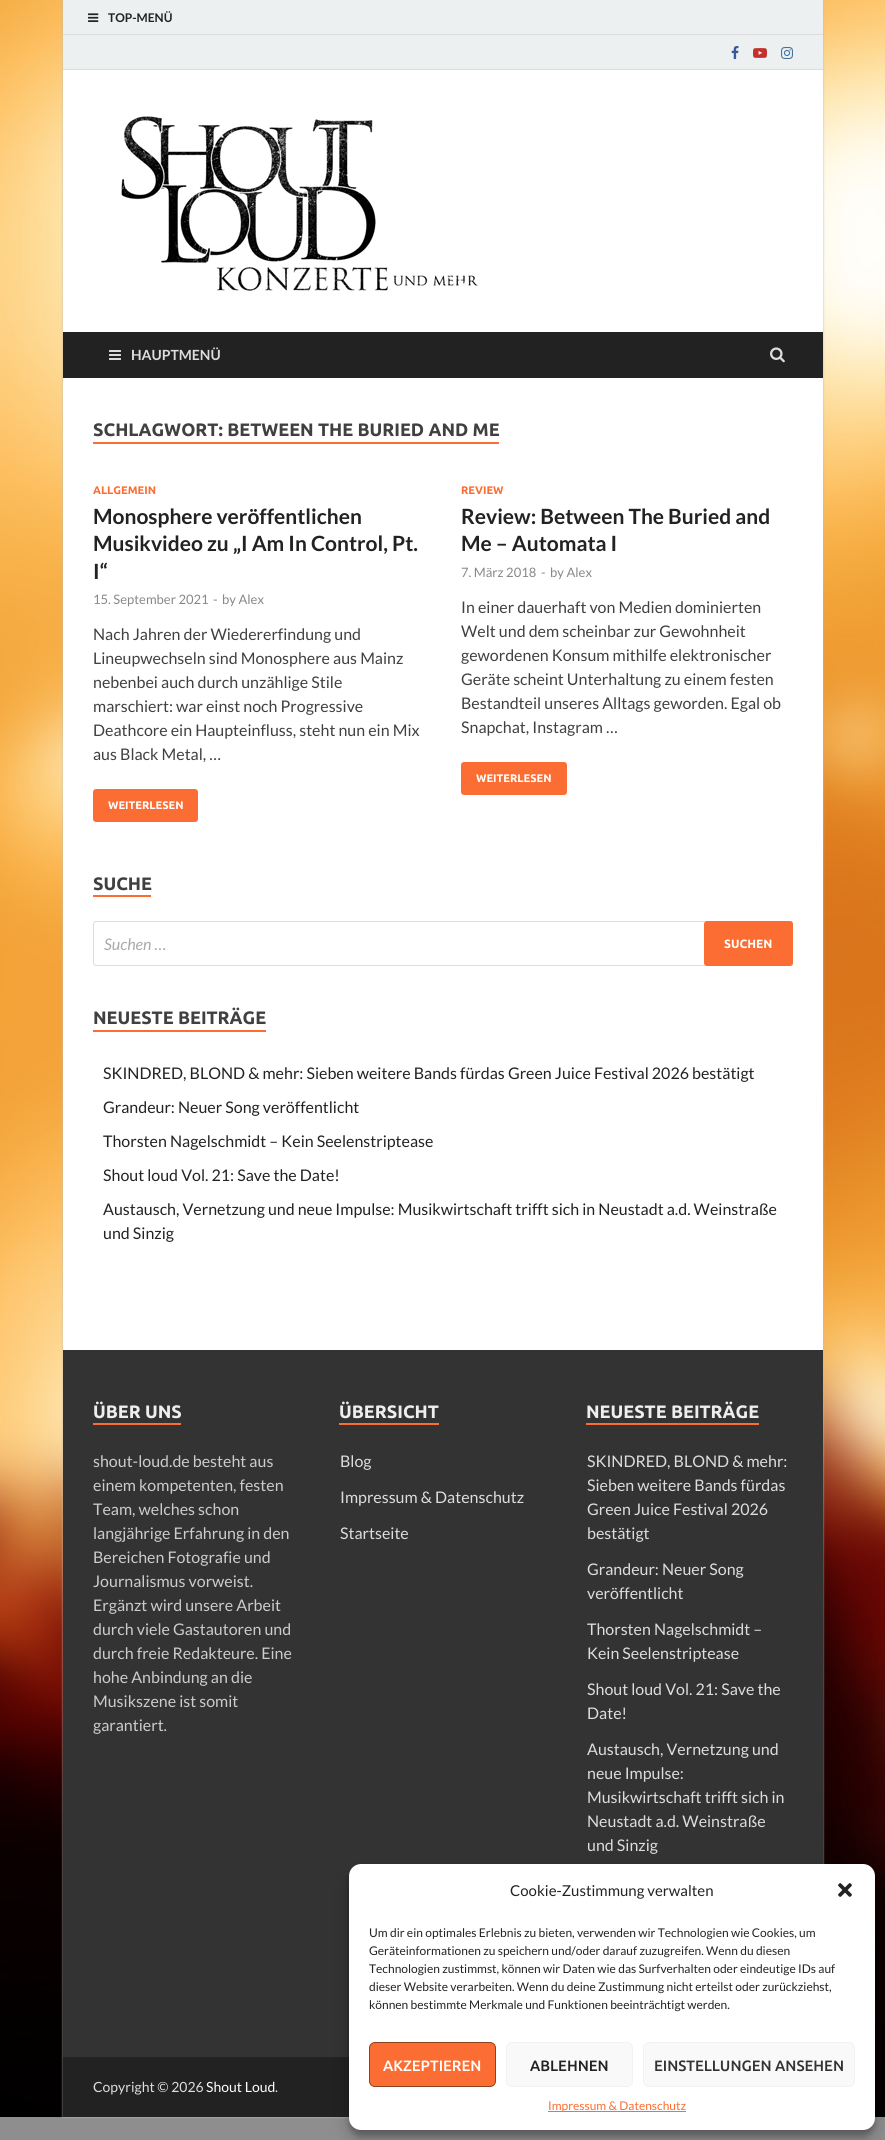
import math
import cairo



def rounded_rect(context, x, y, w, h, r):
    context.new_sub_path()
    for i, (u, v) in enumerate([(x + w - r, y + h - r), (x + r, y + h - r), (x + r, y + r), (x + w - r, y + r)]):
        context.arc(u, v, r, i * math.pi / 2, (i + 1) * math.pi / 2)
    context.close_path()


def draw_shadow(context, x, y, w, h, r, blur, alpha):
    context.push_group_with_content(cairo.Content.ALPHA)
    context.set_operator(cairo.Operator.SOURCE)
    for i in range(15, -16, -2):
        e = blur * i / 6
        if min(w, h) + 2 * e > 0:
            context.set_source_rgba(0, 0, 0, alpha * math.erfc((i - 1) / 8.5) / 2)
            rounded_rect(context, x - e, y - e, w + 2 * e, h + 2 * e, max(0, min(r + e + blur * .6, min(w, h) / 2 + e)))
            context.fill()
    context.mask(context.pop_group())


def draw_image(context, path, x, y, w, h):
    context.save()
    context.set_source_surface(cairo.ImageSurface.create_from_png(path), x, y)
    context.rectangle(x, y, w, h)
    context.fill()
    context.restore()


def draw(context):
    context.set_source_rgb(142 / 255, 142 / 255, 142 / 255)
    context.paint()
    draw_image(context, "images/1.png", 0, 0, 885, 2117)
    context.set_source_rgb(187 / 255, 187 / 255, 187 / 255)
    draw_shadow(context, 63, 0, 760, 2117, 0, 1, 1)
    context.set_source_rgb(1, 1, 1)
    context.rectangle(63, 70, 760, 1280)
    context.fill()
    context.set_source_rgb(236 / 255, 240 / 255, 241 / 255)
    context.rectangle(63, 0, 760, 34)
    context.fill()
    context.set_source_rgb(221 / 255, 221 / 255, 221 / 255)
    context.rectangle(63, 34, 760, 1)
    context.fill()
    draw_image(context, "images/2.png", 88, 13, 11, 9)
    context.set_source_rgb(236 / 255, 240 / 255, 241 / 255)
    context.rectangle(63, 35, 760, 34)
    context.fill()
    context.set_source_rgb(221 / 255, 221 / 255, 221 / 255)
    context.rectangle(63, 69, 760, 1)
    context.fill()
    draw_image(context, "images/3.png", 731, 46, 8, 13)
    draw_image(context, "images/4.png", 753, 48, 14, 10)
    draw_image(context, "images/5.png", 781, 47, 12, 12)
    draw_image(context, "images/6.png", 121, 116, 357, 175)
    context.set_source_rgb(34 / 255, 34 / 255, 34 / 255)
    context.rectangle(63, 332, 760, 46)
    context.fill()
    draw_image(context, "images/7.png", 109, 350, 12, 10)
    draw_image(context, "images/8.png", 770, 347, 15, 16)
    context.set_source_rgb(251 / 255, 109 / 255, 50 / 255)
    context.rectangle(93, 442, 406, 2)
    context.fill()
    rounded_rect(context, 93, 789, 105, 33, 3)
    context.fill()
    rounded_rect(context, 461, 762, 106, 33, 3)
    context.fill()
    context.rectangle(93, 895, 58, 2)
    context.fill()
    rounded_rect(context, 93.5, 921.5, 699, 44, 2.5)
    context.set_source_rgb(221 / 255, 221 / 255, 221 / 255)
    context.set_line_width(1)
    context.stroke()
    context.set_source_rgb(251 / 255, 109 / 255, 50 / 255)
    rounded_rect(context, 704, 921, 89, 45, 3)
    context.fill()
    context.rectangle(93, 1030, 173, 2)
    context.fill()
    context.set_source_rgb(51 / 255, 51 / 255, 51 / 255)
    context.rectangle(63, 1350, 760, 707)
    context.fill()
    context.set_source_rgb(251 / 255, 109 / 255, 50 / 255)
    context.rectangle(93, 1423, 88, 2)
    context.fill()
    context.rectangle(339, 1423, 100, 2)
    context.fill()
    context.rectangle(586, 1423, 173, 2)
    context.fill()
    context.set_source_rgb(34 / 255, 34 / 255, 34 / 255)
    context.rectangle(63, 2057, 286, 60)
    context.fill()
    context.set_source_rgb(0, 0, 0)
    draw_shadow(context, 349, 1870, 526, 266, 12, 3, 0.23)
    draw_shadow(context, 349, 1874, 526, 266, 12, 10, 0.19)
    context.set_source_rgb(1, 1, 1)
    rounded_rect(context, 349, 1864, 526, 266, 12)
    context.fill()
    draw_image(context, "images/9.png", 838, 1883, 14, 14)
    context.set_source_rgb(251 / 255, 109 / 255, 50 / 255)
    rounded_rect(context, 369.5, 2042.5, 126, 44, 5.5)
    context.fill_preserve()
    context.set_source_rgb(142 / 255, 66 / 255, 28 / 255)
    context.stroke()
    context.set_source_rgb(249 / 255, 249 / 255, 249 / 255)
    rounded_rect(context, 506.5, 2042.5, 126, 44, 5.5)
    context.fill_preserve()
    context.set_source_rgb(242 / 255, 242 / 255, 242 / 255)
    context.stroke()
    context.set_source_rgb(249 / 255, 249 / 255, 249 / 255)
    rounded_rect(context, 643.5, 2042.5, 211, 44, 5.5)
    context.fill_preserve()
    context.set_source_rgb(242 / 255, 242 / 255, 242 / 255)
    context.stroke()
    context.set_source_rgb(251 / 255, 109 / 255, 50 / 255)
    context.rectangle(548, 2111, 138, 1)
    context.fill()
    context.select_font_face("Lato", cairo.FontSlant.NORMAL, cairo.FontWeight.BOLD)
    context.set_font_size(12)
    context.set_source_rgb(34 / 255, 34 / 255, 34 / 255)
    context.move_to(108, 22)
    context.show_text("TOP-MENÜ")
    context.set_font_size(14)
    context.set_source_rgb(221 / 255, 221 / 255, 221 / 255)
    context.move_to(131, 360)
    context.show_text("HAUPTMENÜ")
    context.select_font_face("Ubuntu", cairo.FontSlant.NORMAL, cairo.FontWeight.BOLD)
    context.set_font_size(18)
    context.set_source_rgb(64 / 255, 64 / 255, 64 / 255)
    context.move_to(93, 436)
    context.show_text("SCHLAGWORT: BETWEEN THE BURIED AND ME")
    context.set_font_size(11)
    context.set_source_rgb(251 / 255, 109 / 255, 50 / 255)
    context.move_to(93, 494)
    context.show_text("ALLGEMEIN")
    context.select_font_face("Lato", cairo.FontSlant.NORMAL, cairo.FontWeight.BOLD)
    context.set_font_size(21)
    context.set_source_rgb(34 / 255, 34 / 255, 34 / 255)
    context.move_to(93, 524)
    context.show_text("Monosphere veröffentlichen")
    context.move_to(93, 551)
    context.show_text("Musikvideo zu „I Am In Control, Pt.")
    context.move_to(93, 579)
    context.show_text("I“")
    context.select_font_face("Lato")
    context.set_font_size(13)
    context.set_source_rgb(136 / 255, 136 / 255, 136 / 255)
    context.move_to(93, 604)
    context.show_text("15. September 2021")
    context.move_to(213, 604)
    context.show_text("-")
    context.move_to(222, 604)
    context.show_text("by Alex")
    context.set_font_size(16)
    context.set_source_rgb(64 / 255, 64 / 255, 64 / 255)
    context.move_to(93, 640)
    context.show_text("Nach Jahren der Wiedererfindung und")
    context.move_to(93, 664)
    context.show_text("Lineupwechseln sind Monosphere aus Mainz")
    context.move_to(93, 688)
    context.show_text("nebenbei auch durch unzählige Stile")
    context.move_to(93, 712)
    context.show_text("marschiert: war einst noch Progressive")
    context.move_to(93, 736)
    context.show_text("Deathcore ein Haupteinfluss, steht nun ein Mix")
    context.move_to(93, 760)
    context.show_text("aus Black Metal, …")
    context.select_font_face("Ubuntu", cairo.FontSlant.NORMAL, cairo.FontWeight.BOLD)
    context.set_font_size(11)
    context.set_source_rgb(1, 1, 1)
    context.move_to(108, 809)
    context.show_text("WEITERLESEN")
    context.set_source_rgb(251 / 255, 109 / 255, 50 / 255)
    context.move_to(461, 494)
    context.show_text("REVIEW")
    context.select_font_face("Lato", cairo.FontSlant.NORMAL, cairo.FontWeight.BOLD)
    context.set_font_size(21)
    context.set_source_rgb(34 / 255, 34 / 255, 34 / 255)
    context.move_to(461, 524)
    context.show_text("Review: Between The Buried and")
    context.move_to(461, 551)
    context.show_text("Me – Automata I")
    context.select_font_face("Lato")
    context.set_font_size(13)
    context.set_source_rgb(136 / 255, 136 / 255, 136 / 255)
    context.move_to(461, 577)
    context.show_text("7. März 2018")
    context.move_to(541, 577)
    context.show_text("-")
    context.move_to(550, 577)
    context.show_text("by Alex")
    context.set_font_size(16)
    context.set_source_rgb(64 / 255, 64 / 255, 64 / 255)
    context.move_to(461, 613)
    context.show_text("In einer dauerhaft von Medien dominierten")
    context.move_to(461, 637)
    context.show_text("Welt und dem scheinbar zur Gewohnheit")
    context.move_to(461, 661)
    context.show_text("gewordenen Konsum mithilfe elektronischer")
    context.move_to(461, 685)
    context.show_text("Geräte scheint Unterhaltung zu einem festen")
    context.move_to(461, 709)
    context.show_text("Bestandteil unseres Alltags geworden. Egal ob")
    context.move_to(461, 733)
    context.show_text("Snapchat, Instagram …")
    context.select_font_face("Ubuntu", cairo.FontSlant.NORMAL, cairo.FontWeight.BOLD)
    context.set_font_size(11)
    context.set_source_rgb(1, 1, 1)
    context.move_to(476, 782)
    context.show_text("WEITERLESEN")
    context.set_font_size(18)
    context.set_source_rgb(64 / 255, 64 / 255, 64 / 255)
    context.move_to(93, 890)
    context.show_text("SUCHE")
    context.select_font_face("Lato", cairo.FontSlant.ITALIC)
    context.set_font_size(16)
    context.set_source_rgb(170 / 255, 170 / 255, 170 / 255)
    context.move_to(104, 950)
    context.show_text("Suchen …")
    context.select_font_face("Ubuntu", cairo.FontSlant.NORMAL, cairo.FontWeight.BOLD)
    context.set_font_size(12)
    context.set_source_rgb(1, 1, 1)
    context.move_to(724, 948)
    context.show_text("SUCHEN")
    context.set_font_size(18)
    context.set_source_rgb(64 / 255, 64 / 255, 64 / 255)
    context.move_to(93, 1024)
    context.show_text("NEUESTE BEITRÄGE")
    context.select_font_face("Lato")
    context.set_font_size(16)
    context.set_source_rgb(34 / 255, 34 / 255, 34 / 255)
    context.move_to(103, 1079)
    context.show_text("SKINDRED, BLOND & mehr: Sieben weitere Bands fürdas Green Juice Festival 2026 bestätigt")
    context.move_to(103, 1113)
    context.show_text("Grandeur: Neuer Song veröffentlicht")
    context.move_to(103, 1147)
    context.show_text("Thorsten Nagelschmidt – Kein Seelenstriptease")
    context.move_to(103, 1181)
    context.show_text("Shout loud Vol. 21: Save the Date!")
    context.move_to(103, 1215)
    context.show_text("Austausch, Vernetzung und neue Impulse: Musikwirtschaft trifft sich in Neustadt a.d. Weinstraße")
    context.move_to(103, 1239)
    context.show_text("und Sinzig")
    context.select_font_face("Ubuntu", cairo.FontSlant.NORMAL, cairo.FontWeight.BOLD)
    context.set_font_size(18)
    context.set_source_rgb(238 / 255, 238 / 255, 238 / 255)
    context.move_to(93, 1418)
    context.show_text("ÜBER UNS")
    context.select_font_face("Lato")
    context.set_font_size(16)
    context.set_source_rgb(204 / 255, 204 / 255, 204 / 255)
    context.move_to(93, 1467)
    context.show_text("shout-loud.de besteht aus")
    context.move_to(93, 1491)
    context.show_text("einem kompetenten, festen")
    context.move_to(93, 1515)
    context.show_text("Team, welches schon")
    context.move_to(93, 1539)
    context.show_text("langjährige Erfahrung in den")
    context.move_to(93, 1563)
    context.show_text("Bereichen Fotografie und")
    context.move_to(93, 1587)
    context.show_text("Journalismus vorweist.")
    context.move_to(93, 1611)
    context.show_text("Ergänzt wird unsere Arbeit")
    context.move_to(93, 1635)
    context.show_text("durch viele Gastautoren und")
    context.move_to(93, 1659)
    context.show_text("durch freie Redakteure. Eine")
    context.move_to(93, 1683)
    context.show_text("hohe Anbindung an die")
    context.move_to(93, 1707)
    context.show_text("Musikszene ist somit")
    context.move_to(93, 1731)
    context.show_text("garantiert.")
    context.select_font_face("Ubuntu", cairo.FontSlant.NORMAL, cairo.FontWeight.BOLD)
    context.set_font_size(18)
    context.set_source_rgb(238 / 255, 238 / 255, 238 / 255)
    context.move_to(339, 1418)
    context.show_text("ÜBERSICHT")
    context.select_font_face("Lato")
    context.set_font_size(16)
    context.set_source_rgb(221 / 255, 221 / 255, 221 / 255)
    context.move_to(340, 1467)
    context.show_text("Blog")
    context.move_to(340, 1503)
    context.show_text("Impressum & Datenschutz")
    context.move_to(340, 1539)
    context.show_text("Startseite")
    context.select_font_face("Ubuntu", cairo.FontSlant.NORMAL, cairo.FontWeight.BOLD)
    context.set_font_size(18)
    context.set_source_rgb(238 / 255, 238 / 255, 238 / 255)
    context.move_to(586, 1418)
    context.show_text("NEUESTE BEITRÄGE")
    context.select_font_face("Lato")
    context.set_font_size(16)
    context.set_source_rgb(221 / 255, 221 / 255, 221 / 255)
    context.move_to(587, 1467)
    context.show_text("SKINDRED, BLOND & mehr:")
    context.move_to(587, 1491)
    context.show_text("Sieben weitere Bands fürdas")
    context.move_to(587, 1515)
    context.show_text("Green Juice Festival 2026")
    context.move_to(587, 1539)
    context.show_text("bestätigt")
    context.move_to(587, 1575)
    context.show_text("Grandeur: Neuer Song")
    context.move_to(587, 1599)
    context.show_text("veröffentlicht")
    context.move_to(587, 1635)
    context.show_text("Thorsten Nagelschmidt –")
    context.move_to(587, 1659)
    context.show_text("Kein Seelenstriptease")
    context.move_to(587, 1695)
    context.show_text("Shout loud Vol. 21: Save the")
    context.move_to(587, 1719)
    context.show_text("Date!")
    context.move_to(587, 1755)
    context.show_text("Austausch, Vernetzung und")
    context.move_to(587, 1779)
    context.show_text("neue Impulse:")
    context.move_to(587, 1803)
    context.show_text("Musikwirtschaft trifft sich in")
    context.move_to(587, 1827)
    context.show_text("Neustadt a.d. Weinstraße")
    context.move_to(587, 1851)
    context.show_text("und Sinzig")
    context.set_font_size(14)
    context.move_to(93, 2092)
    context.show_text("Copyright © 2026")
    context.set_source_rgb(1, 1, 1)
    context.move_to(206, 2092)
    context.show_text("Shout Loud")
    context.set_source_rgb(221 / 255, 221 / 255, 221 / 255)
    context.move_to(275, 2092)
    context.show_text(".")
    context.set_font_size(15)
    context.set_source_rgb(34 / 255, 34 / 255, 34 / 255)
    context.move_to(510, 1896)
    context.show_text("Cookie-Zustimmung verwalten")
    context.set_font_size(12)
    context.move_to(369, 1937)
    context.show_text("Um dir ein optimales Erlebnis zu bieten, verwenden wir Technologien wie Cookies, um")
    context.move_to(369, 1955)
    context.show_text("Geräteinformationen zu speichern und/oder darauf zuzugreifen. Wenn du diesen")
    context.move_to(369, 1973)
    context.show_text("Technologien zustimmst, können wir Daten wie das Surfverhalten oder eindeutige IDs auf")
    context.move_to(369, 1991)
    context.show_text("dieser Website verarbeiten. Wenn du deine Zustimmung nicht erteilst oder zurückziehst,")
    context.move_to(369, 2009)
    context.show_text("können bestimmte Merkmale und Funktionen beeinträchtigt werden.")
    context.select_font_face("Ubuntu Medium")
    context.set_font_size(15)
    context.set_source_rgb(1, 1, 1)
    context.move_to(383, 2071)
    context.show_text("AKZEPTIEREN")
    context.set_source_rgb(34 / 255, 34 / 255, 34 / 255)
    context.move_to(530, 2071)
    context.show_text("ABLEHNEN")
    context.set_source_rgb(51 / 255, 51 / 255, 51 / 255)
    context.move_to(654, 2071)
    context.show_text("EINSTELLUNGEN ANSEHEN")
    context.select_font_face("Lato")
    context.set_font_size(12)
    context.set_source_rgb(251 / 255, 109 / 255, 50 / 255)
    context.move_to(548, 2110)
    context.show_text("Impressum & Datenschutz")


surface = cairo.ImageSurface(cairo.Format.RGB24, 885, 2140)
context = cairo.Context(surface)
options = cairo.FontOptions()
options.set_hint_metrics(cairo.HintMetrics.OFF)
options.set_hint_style(cairo.HintStyle.NONE)
context.set_font_options(options)
context.set_miter_limit(4)
draw(context)
surface.write_to_png("out.png")
